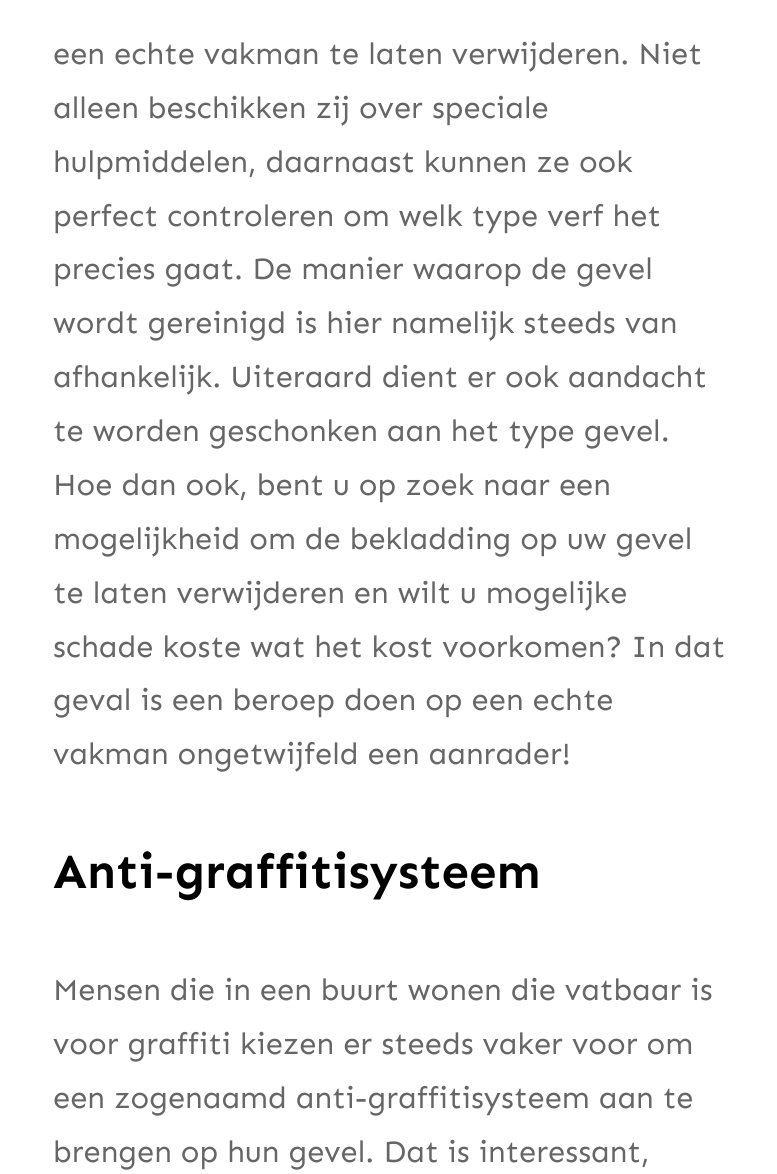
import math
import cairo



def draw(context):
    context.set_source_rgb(1, 1, 1)
    context.paint()
    context.select_font_face("Sen")
    context.set_font_size(30.8)
    context.set_source_rgb(102 / 255, 102 / 255, 102 / 255)
    context.move_to(53, 64)
    context.show_text("een echte vakman te laten verwijderen. Niet")
    context.move_to(53, 118)
    context.show_text("alleen beschikken zij over speciale")
    context.move_to(53, 172)
    context.show_text("hulpmiddelen, daarnaast kunnen ze ook")
    context.move_to(53, 226)
    context.show_text("perfect controleren om welk type verf het")
    context.move_to(53, 279)
    context.show_text("precies gaat. De manier waarop de gevel")
    context.move_to(53, 333)
    context.show_text("wordt gereinigd is hier namelijk steeds van")
    context.move_to(53, 387)
    context.show_text("afhankelijk. Uiteraard dient er ook aandacht")
    context.move_to(53, 441)
    context.show_text("te worden geschonken aan het type gevel.")
    context.move_to(53, 495)
    context.show_text("Hoe dan ook, bent u op zoek naar een")
    context.move_to(53, 549)
    context.show_text("mogelijkheid om de bekladding op uw gevel")
    context.move_to(53, 603)
    context.show_text("te laten verwijderen en wilt u mogelijke")
    context.move_to(53, 657)
    context.show_text("schade koste wat het kost voorkomen? In dat")
    context.move_to(53, 710)
    context.show_text("geval is een beroep doen op een echte")
    context.move_to(53, 764)
    context.show_text("vakman ongetwijfeld een aanrader!")
    context.select_font_face("Sen", cairo.FontSlant.NORMAL, cairo.FontWeight.BOLD)
    context.set_font_size(49)
    context.set_source_rgb(0, 0, 0)
    context.move_to(53, 888)
    context.show_text("Anti-graffitisysteem")
    context.select_font_face("Sen")
    context.set_font_size(30.8)
    context.set_source_rgb(102 / 255, 102 / 255, 102 / 255)
    context.move_to(53, 1000)
    context.show_text("Mensen die in een buurt wonen die vatbaar is")
    context.move_to(53, 1054)
    context.show_text("voor graffiti kiezen er steeds vaker voor om")
    context.move_to(53, 1108)
    context.show_text("een zogenaamd anti-graffitisysteem aan te")
    context.move_to(53, 1162)
    context.show_text("brengen op hun gevel. Dat is interessant,")


surface = cairo.ImageSurface(cairo.Format.RGB24, 777, 1174)
context = cairo.Context(surface)
options = cairo.FontOptions()
options.set_hint_metrics(cairo.HintMetrics.OFF)
options.set_hint_style(cairo.HintStyle.NONE)
context.set_font_options(options)
context.set_miter_limit(4)
draw(context)
surface.write_to_png("out.png")
